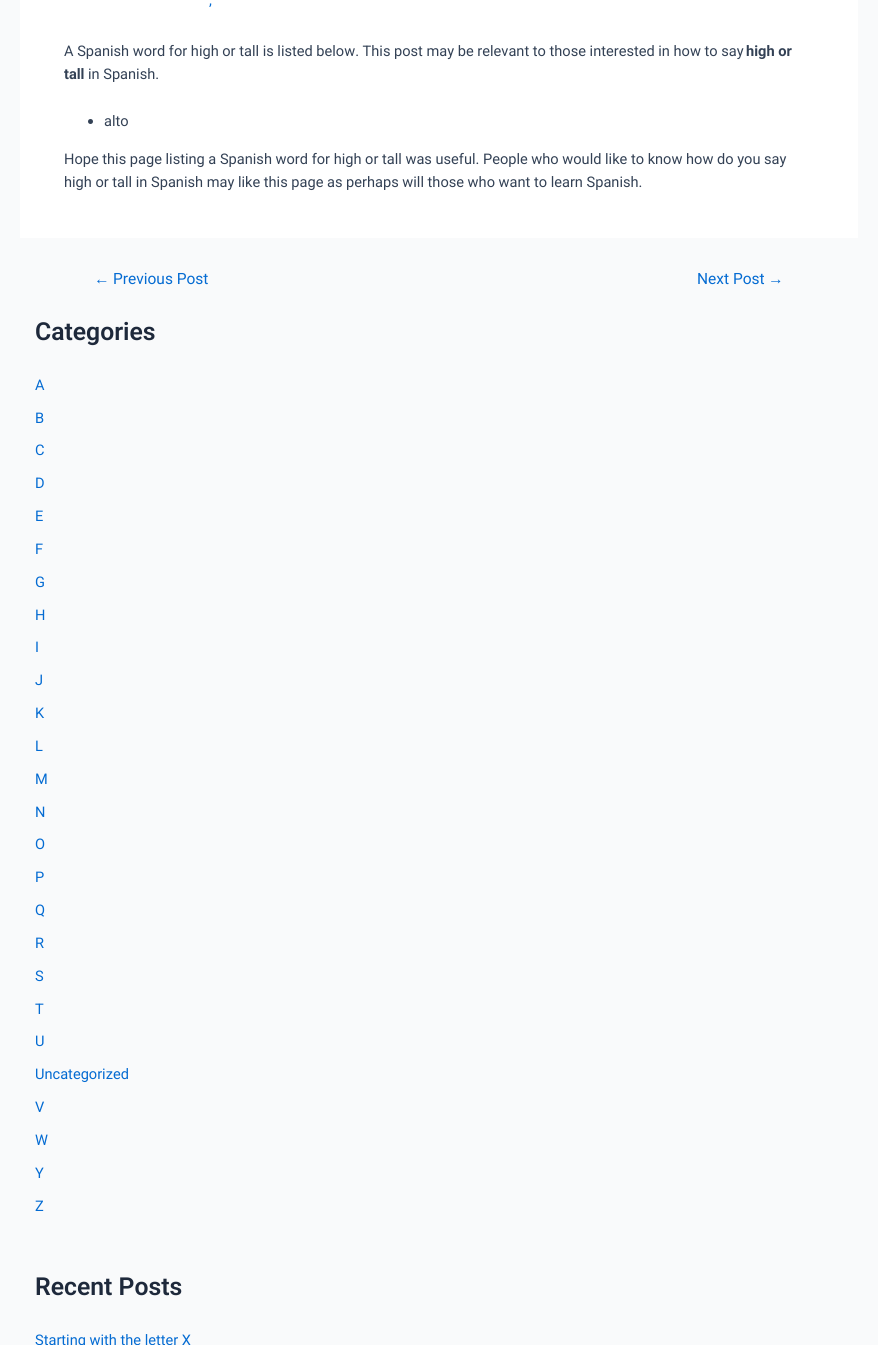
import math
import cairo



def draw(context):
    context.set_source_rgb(249 / 255, 250 / 255, 251 / 255)
    context.paint()
    context.set_source_rgb(1, 1, 1)
    context.rectangle(20, 0, 838, 238)
    context.fill()
    context.set_source_rgb(51 / 255, 65 / 255, 85 / 255)
    context.arc(90.5, 121.5, 2.5, 0, 2 * math.pi)
    context.fill()
    context.select_font_face("Roboto")
    context.set_font_size(14.6)
    context.set_source_rgb(4 / 255, 107 / 255, 210 / 255)
    context.move_to(209, 5)
    context.show_text(",")
    context.set_source_rgb(51 / 255, 65 / 255, 85 / 255)
    context.move_to(64, 56)
    context.show_text("A Spanish word for high or tall is listed below. This post may be relevant to those interested in how to say")
    context.select_font_face("Roboto", cairo.FontSlant.NORMAL, cairo.FontWeight.BOLD)
    context.move_to(746, 56)
    context.show_text("high or")
    context.move_to(64, 79)
    context.show_text("tall")
    context.select_font_face("Roboto")
    context.move_to(88, 79)
    context.show_text("in Spanish.")
    context.move_to(104, 126)
    context.show_text("alto")
    context.move_to(64, 164)
    context.show_text("Hope this page listing a Spanish word for high or tall was useful. People who would like to know how do you say")
    context.move_to(64, 187)
    context.show_text("high or tall in Spanish may like this page as perhaps will those who want to learn Spanish.")
    context.select_font_face("Liberation Sans")
    context.set_font_size(15.5)
    context.set_source_rgb(4 / 255, 107 / 255, 210 / 255)
    context.move_to(94, 284)
    context.show_text("←")
    context.select_font_face("Roboto")
    context.move_to(113, 284)
    context.show_text("Previous Post")
    context.move_to(697, 284)
    context.show_text("Next Post")
    context.select_font_face("Liberation Sans")
    context.move_to(768, 284)
    context.show_text("→")
    context.select_font_face("Roboto SemiBold")
    context.set_font_size(24.75)
    context.set_source_rgb(30 / 255, 41 / 255, 59 / 255)
    context.move_to(35, 340)
    context.show_text("Categories")
    context.select_font_face("Roboto")
    context.set_font_size(14.6)
    context.set_source_rgb(4 / 255, 107 / 255, 210 / 255)
    context.move_to(35, 390)
    context.show_text("A")
    context.move_to(35, 423)
    context.show_text("B")
    context.move_to(35, 455)
    context.show_text("C")
    context.move_to(35, 488)
    context.show_text("D")
    context.move_to(35, 521)
    context.show_text("E")
    context.move_to(35, 554)
    context.show_text("F")
    context.move_to(35, 587)
    context.show_text("G")
    context.move_to(35, 620)
    context.show_text("H")
    context.move_to(35, 652)
    context.show_text("I")
    context.move_to(35, 685)
    context.show_text("J")
    context.move_to(35, 718)
    context.show_text("K")
    context.move_to(35, 751)
    context.show_text("L")
    context.move_to(35, 784)
    context.show_text("M")
    context.move_to(35, 817)
    context.show_text("N")
    context.move_to(35, 849)
    context.show_text("O")
    context.move_to(35, 882)
    context.show_text("P")
    context.move_to(35, 915)
    context.show_text("Q")
    context.move_to(35, 948)
    context.show_text("R")
    context.move_to(35, 981)
    context.show_text("S")
    context.move_to(35, 1014)
    context.show_text("T")
    context.move_to(35, 1046)
    context.show_text("U")
    context.move_to(35, 1079)
    context.show_text("Uncategorized")
    context.move_to(35, 1112)
    context.show_text("V")
    context.move_to(35, 1145)
    context.show_text("W")
    context.move_to(35, 1178)
    context.show_text("Y")
    context.move_to(35, 1211)
    context.show_text("Z")
    context.select_font_face("Roboto SemiBold")
    context.set_font_size(24.75)
    context.set_source_rgb(30 / 255, 41 / 255, 59 / 255)
    context.move_to(35, 1295)
    context.show_text("Recent Posts")
    context.select_font_face("Roboto")
    context.set_font_size(14.6)
    context.set_source_rgb(4 / 255, 107 / 255, 210 / 255)
    context.move_to(35, 1345)
    context.show_text("Starting with the letter X")


surface = cairo.ImageSurface(cairo.Format.RGB24, 878, 1345)
context = cairo.Context(surface)
options = cairo.FontOptions()
options.set_hint_metrics(cairo.HintMetrics.OFF)
options.set_hint_style(cairo.HintStyle.NONE)
context.set_font_options(options)
context.set_miter_limit(4)
draw(context)
surface.write_to_png("out.png")
